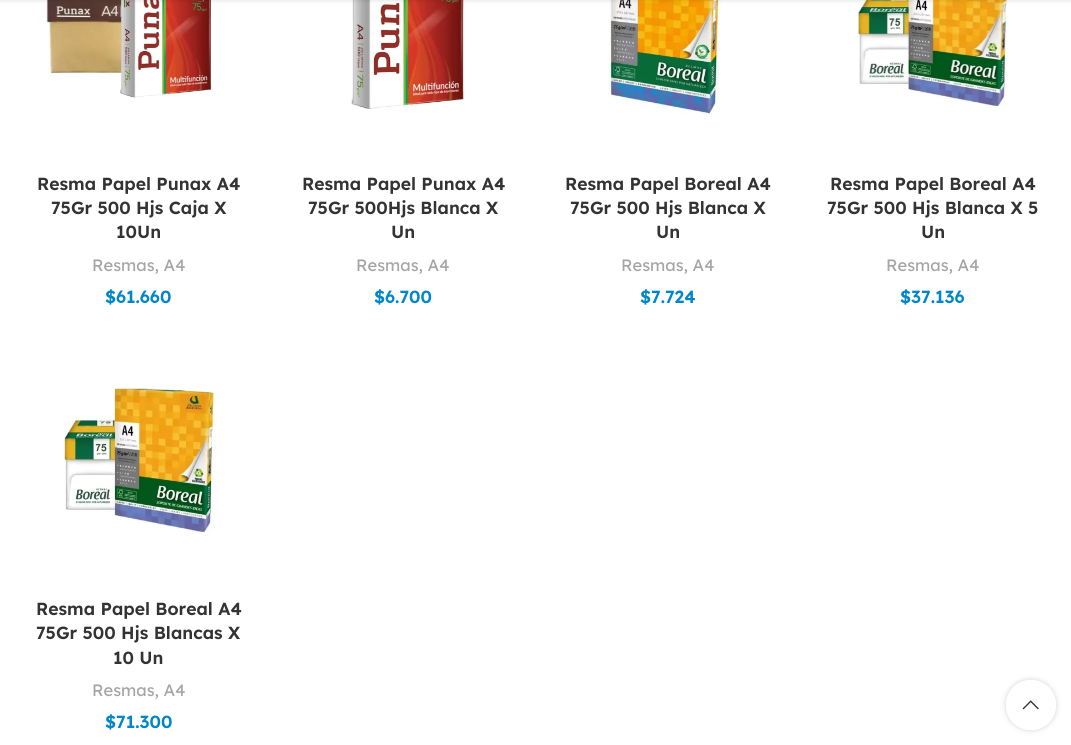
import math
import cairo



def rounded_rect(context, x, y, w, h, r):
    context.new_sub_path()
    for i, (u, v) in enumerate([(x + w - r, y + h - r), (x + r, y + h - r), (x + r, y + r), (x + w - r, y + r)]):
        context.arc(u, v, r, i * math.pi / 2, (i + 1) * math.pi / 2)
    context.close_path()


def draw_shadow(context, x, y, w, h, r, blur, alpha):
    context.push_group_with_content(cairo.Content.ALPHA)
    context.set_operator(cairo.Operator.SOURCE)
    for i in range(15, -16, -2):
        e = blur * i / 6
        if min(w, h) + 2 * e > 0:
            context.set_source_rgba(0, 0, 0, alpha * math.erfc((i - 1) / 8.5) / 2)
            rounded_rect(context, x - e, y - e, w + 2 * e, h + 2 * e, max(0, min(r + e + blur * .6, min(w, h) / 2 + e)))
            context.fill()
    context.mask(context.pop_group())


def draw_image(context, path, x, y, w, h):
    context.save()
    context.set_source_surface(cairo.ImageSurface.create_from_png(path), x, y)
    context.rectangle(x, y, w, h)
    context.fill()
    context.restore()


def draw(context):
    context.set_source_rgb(1, 1, 1)
    context.paint()
    draw_image(context, "images/1.png", 46, 0, 166, 98)
    draw_image(context, "images/2.png", 351, 0, 114, 109)
    draw_image(context, "images/3.png", 608, 0, 114, 115)
    draw_image(context, "images/4.png", 857, 0, 151, 107)
    context.set_source_rgb(0, 0, 0)
    draw_shadow(context, 0, -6, 1071, 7, 0, 2, 0.1)
    draw_image(context, "images/5.png", 63, 386, 152, 147)
    context.save()
    context.set_fill_rule(cairo.FillRule.EVEN_ODD)
    context.new_path()
    context.move_to(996, 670)
    context.line_to(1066, 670)
    context.line_to(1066, 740)
    context.line_to(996, 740)
    context.close_path()
    context.move_to(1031, 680)
    context.curve_to(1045, 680, 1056, 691, 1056, 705)
    context.curve_to(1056, 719, 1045, 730, 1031, 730)
    context.curve_to(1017, 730, 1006, 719, 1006, 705)
    context.curve_to(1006, 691, 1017, 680, 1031, 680)
    context.close_path()
    context.clip()
    draw_shadow(context, 1006, 680, 50, 50, 25, 3, 0.17)
    context.restore()
    context.set_source_rgba(1, 1, 1, 0.9)
    context.arc(1031, 705, 25, 0, 2 * math.pi)
    context.fill()
    draw_image(context, "images/6.png", 1022, 700, 17, 10)
    context.select_font_face("Lexend SemiBold")
    context.set_font_size(17.5)
    context.set_source_rgb(51 / 255, 51 / 255, 51 / 255)
    context.move_to(37, 190)
    context.show_text("Resma Papel Punax A4")
    context.move_to(51, 214)
    context.show_text("75Gr 500 Hjs Caja X")
    context.move_to(116, 238)
    context.show_text("10Un")
    context.select_font_face("Lexend")
    context.set_font_size(16.5)
    context.set_source_rgb(165 / 255, 165 / 255, 165 / 255)
    context.move_to(92, 271)
    context.show_text("Resmas, A4")
    context.select_font_face("Lexend SemiBold")
    context.set_font_size(17.5)
    context.set_source_rgb(0, 134 / 255, 201 / 255)
    context.move_to(105, 303)
    context.show_text("$61.660")
    context.set_source_rgb(51 / 255, 51 / 255, 51 / 255)
    context.move_to(302, 190)
    context.show_text("Resma Papel Punax A4")
    context.move_to(308, 214)
    context.show_text("75Gr 500Hjs Blanca X")
    context.move_to(391, 238)
    context.show_text("Un")
    context.select_font_face("Lexend")
    context.set_font_size(16.5)
    context.set_source_rgb(165 / 255, 165 / 255, 165 / 255)
    context.move_to(356, 271)
    context.show_text("Resmas, A4")
    context.select_font_face("Lexend SemiBold")
    context.set_font_size(17.5)
    context.set_source_rgb(0, 134 / 255, 201 / 255)
    context.move_to(374, 303)
    context.show_text("$6.700")
    context.set_source_rgb(51 / 255, 51 / 255, 51 / 255)
    context.move_to(565, 190)
    context.show_text("Resma Papel Boreal A4")
    context.move_to(570, 214)
    context.show_text("75Gr 500 Hjs Blanca X")
    context.move_to(656, 238)
    context.show_text("Un")
    context.select_font_face("Lexend")
    context.set_font_size(16.5)
    context.set_source_rgb(165 / 255, 165 / 255, 165 / 255)
    context.move_to(621, 271)
    context.show_text("Resmas, A4")
    context.select_font_face("Lexend SemiBold")
    context.set_font_size(17.5)
    context.set_source_rgb(0, 134 / 255, 201 / 255)
    context.move_to(640, 303)
    context.show_text("$7.724")
    context.set_source_rgb(51 / 255, 51 / 255, 51 / 255)
    context.move_to(830, 190)
    context.show_text("Resma Papel Boreal A4")
    context.move_to(827, 214)
    context.show_text("75Gr 500 Hjs Blanca X 5")
    context.move_to(921, 238)
    context.show_text("Un")
    context.select_font_face("Lexend")
    context.set_font_size(16.5)
    context.set_source_rgb(165 / 255, 165 / 255, 165 / 255)
    context.move_to(886, 271)
    context.show_text("Resmas, A4")
    context.select_font_face("Lexend SemiBold")
    context.set_font_size(17.5)
    context.set_source_rgb(0, 134 / 255, 201 / 255)
    context.move_to(900, 303)
    context.show_text("$37.136")
    context.set_source_rgb(51 / 255, 51 / 255, 51 / 255)
    context.move_to(36, 615)
    context.show_text("Resma Papel Boreal A4")
    context.move_to(36, 639)
    context.show_text("75Gr 500 Hjs Blancas X")
    context.move_to(113, 664)
    context.show_text("10 Un")
    context.select_font_face("Lexend")
    context.set_font_size(16.5)
    context.set_source_rgb(165 / 255, 165 / 255, 165 / 255)
    context.move_to(92, 696)
    context.show_text("Resmas, A4")
    context.select_font_face("Lexend SemiBold")
    context.set_font_size(17.5)
    context.set_source_rgb(0, 134 / 255, 201 / 255)
    context.move_to(105, 728)
    context.show_text("$71.300")


surface = cairo.ImageSurface(cairo.Format.RGB24, 1071, 745)
context = cairo.Context(surface)
options = cairo.FontOptions()
options.set_hint_metrics(cairo.HintMetrics.OFF)
options.set_hint_style(cairo.HintStyle.NONE)
context.set_font_options(options)
context.set_miter_limit(4)
draw(context)
surface.write_to_png("out.png")
